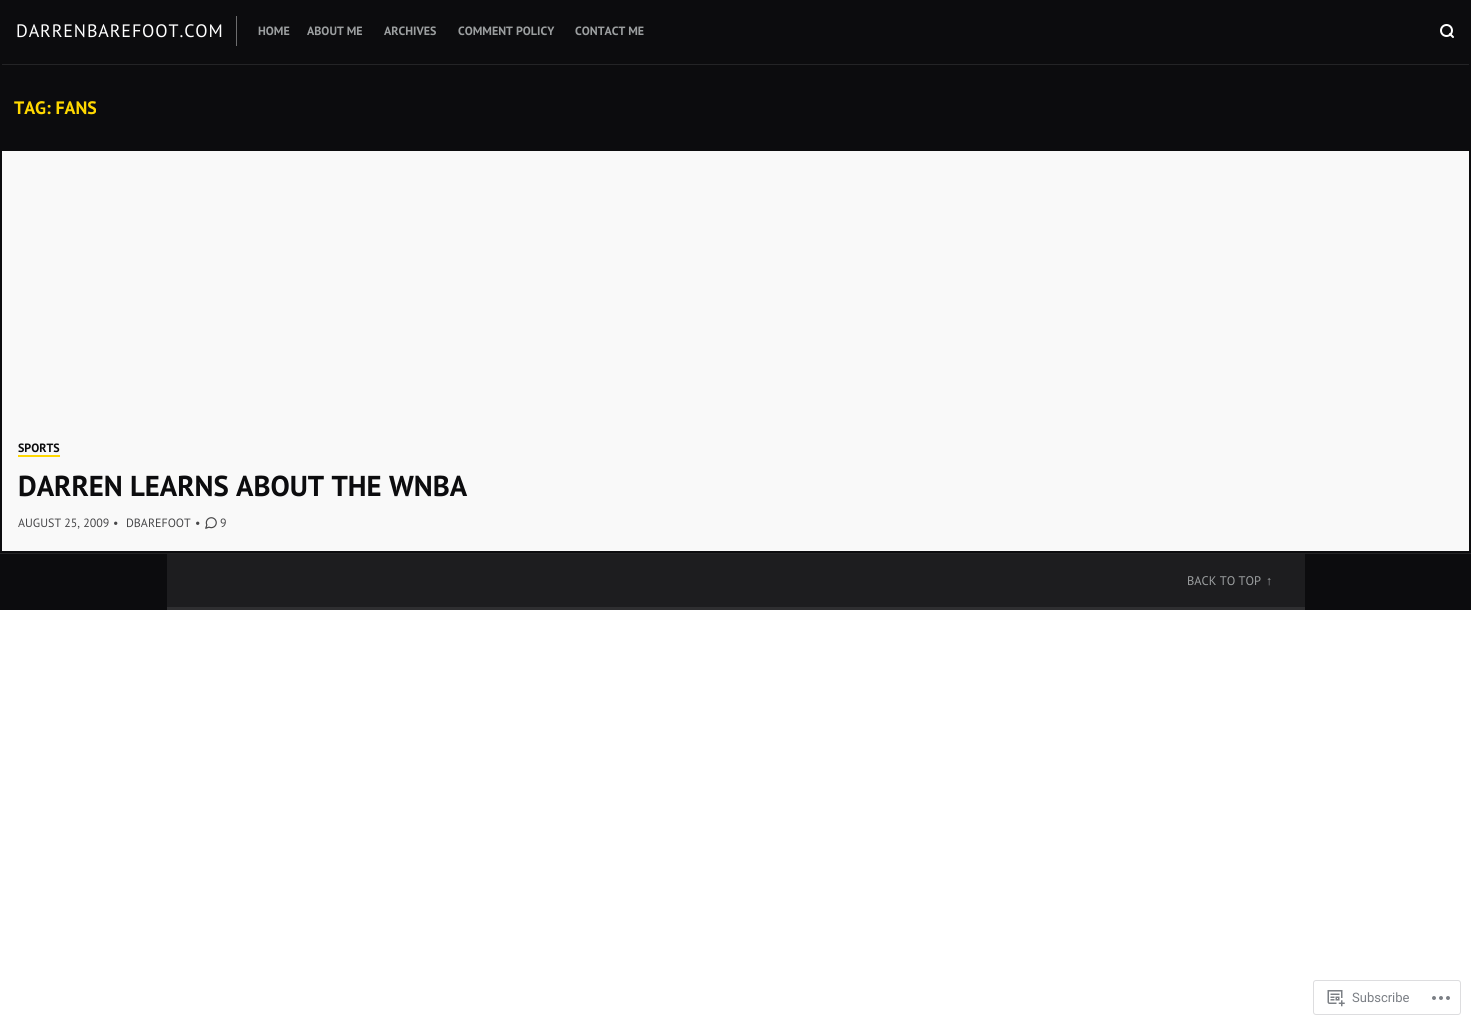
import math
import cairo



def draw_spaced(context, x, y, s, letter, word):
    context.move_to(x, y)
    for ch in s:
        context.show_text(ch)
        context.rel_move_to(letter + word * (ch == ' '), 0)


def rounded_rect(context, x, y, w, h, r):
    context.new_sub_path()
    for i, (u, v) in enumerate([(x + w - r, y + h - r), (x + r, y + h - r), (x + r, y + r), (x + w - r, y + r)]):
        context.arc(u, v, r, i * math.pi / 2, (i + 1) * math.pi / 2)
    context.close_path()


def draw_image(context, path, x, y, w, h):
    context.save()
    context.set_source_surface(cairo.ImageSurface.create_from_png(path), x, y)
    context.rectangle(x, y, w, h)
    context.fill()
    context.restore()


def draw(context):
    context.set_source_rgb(1, 1, 1)
    context.paint()
    context.set_source_rgb(12 / 255, 12 / 255, 14 / 255)
    context.rectangle(0, 0, 1471, 553)
    context.fill()
    context.set_source_rgb(109 / 255, 109 / 255, 110 / 255)
    context.rectangle(236, 16, 1, 30)
    context.fill()
    context.arc(1446.5, 30.5, 5.5, 0, 2 * math.pi)
    context.set_source_rgb(1, 1, 1)
    context.stroke()
    context.new_path()
    context.move_to(1453, 37)
    context.line_to(1450, 34)
    context.set_line_cap(cairo.LineCap.ROUND)
    context.set_line_join(cairo.LineJoin.ROUND)
    context.stroke()
    context.set_source_rgb(36 / 255, 36 / 255, 38 / 255)
    context.rectangle(2, 64, 1467, 1)
    context.fill()
    context.set_source_rgb(249 / 255, 249 / 255, 249 / 255)
    context.rectangle(2, 151, 1467, 400)
    context.fill()
    context.set_source_rgb(1, 216 / 255, 0)
    context.rectangle(18, 455, 42, 2)
    context.fill()
    draw_image(context, "images/1.png", 205, 517, 12, 12)
    context.set_source_rgb(12 / 255, 12 / 255, 14 / 255)
    context.rectangle(0, 554, 1471, 56)
    context.fill()
    context.set_source_rgb(36 / 255, 36 / 255, 38 / 255)
    context.rectangle(0, 553, 1471, 1)
    context.fill()
    context.set_source_rgb(29 / 255, 29 / 255, 31 / 255)
    context.rectangle(167, 554, 1138, 53)
    context.fill()
    context.set_source_rgb(47 / 255, 47 / 255, 49 / 255)
    context.rectangle(167, 607, 1138, 3)
    context.fill()
    rounded_rect(context, 1313.5, 980.5, 147, 34, 2.5)
    context.set_source_rgb(221 / 255, 221 / 255, 223 / 255)
    context.set_line_width(1)
    context.set_line_cap(cairo.LineCap.BUTT)
    context.set_line_join(cairo.LineJoin.MITER)
    context.stroke()
    draw_image(context, "images/2.png", 1327, 990, 18, 17)
    draw_image(context, "images/3.png", 1432, 996, 18, 4)
    context.select_font_face("PT Sans")
    context.set_font_size(18)
    context.set_source_rgb(1, 1, 1)
    draw_spaced(context, 16, 37, "DARRENBAREFOOT.COM", 0.9, 0)
    context.select_font_face("PT Sans", cairo.FontSlant.NORMAL, cairo.FontWeight.BOLD)
    context.set_font_size(12)
    context.set_source_rgb(156 / 255, 159 / 255, 160 / 255)
    context.move_to(258, 35)
    context.show_text("HOME")
    context.move_to(307, 35)
    context.show_text("ABOUT ME")
    context.move_to(384, 35)
    context.show_text("ARCHIVES")
    context.move_to(458, 35)
    context.show_text("COMMENT POLICY")
    context.move_to(575, 35)
    context.show_text("CONTACT ME")
    context.set_font_size(18)
    context.set_source_rgb(1, 216 / 255, 0)
    context.move_to(14, 114)
    context.show_text("TAG: FANS")
    context.set_font_size(12)
    context.set_source_rgb(12 / 255, 12 / 255, 14 / 255)
    context.move_to(18, 452)
    context.show_text("SPORTS")
    context.set_font_size(28.8)
    context.move_to(18, 496)
    context.show_text("DARREN LEARNS ABOUT THE WNBA")
    context.select_font_face("PT Sans")
    context.set_font_size(12)
    context.set_source_rgb(71 / 255, 71 / 255, 73 / 255)
    context.move_to(18, 527)
    context.show_text("AUGUST 25, 2009")
    context.move_to(113, 527)
    context.show_text("•")
    context.move_to(126, 527)
    context.show_text("DBAREFOOT")
    context.move_to(195, 527)
    context.show_text("•")
    context.move_to(220, 527)
    context.show_text("9")
    context.set_font_size(12.5)
    context.set_source_rgb(156 / 255, 159 / 255, 160 / 255)
    context.move_to(1187, 585)
    context.show_text("BACK TO TOP")
    context.select_font_face("Liberation Serif")
    context.move_to(1266, 585)
    context.show_text("↑")
    context.select_font_face("Roboto")
    context.set_font_size(13)
    context.set_source_rgb(123 / 255, 127 / 255, 133 / 255)
    context.move_to(1352, 1002)
    context.show_text("Subscribe")


surface = cairo.ImageSurface(cairo.Format.RGB24, 1471, 1025)
context = cairo.Context(surface)
options = cairo.FontOptions()
options.set_hint_metrics(cairo.HintMetrics.OFF)
options.set_hint_style(cairo.HintStyle.NONE)
context.set_font_options(options)
context.set_miter_limit(4)
draw(context)
surface.write_to_png("out.png")
